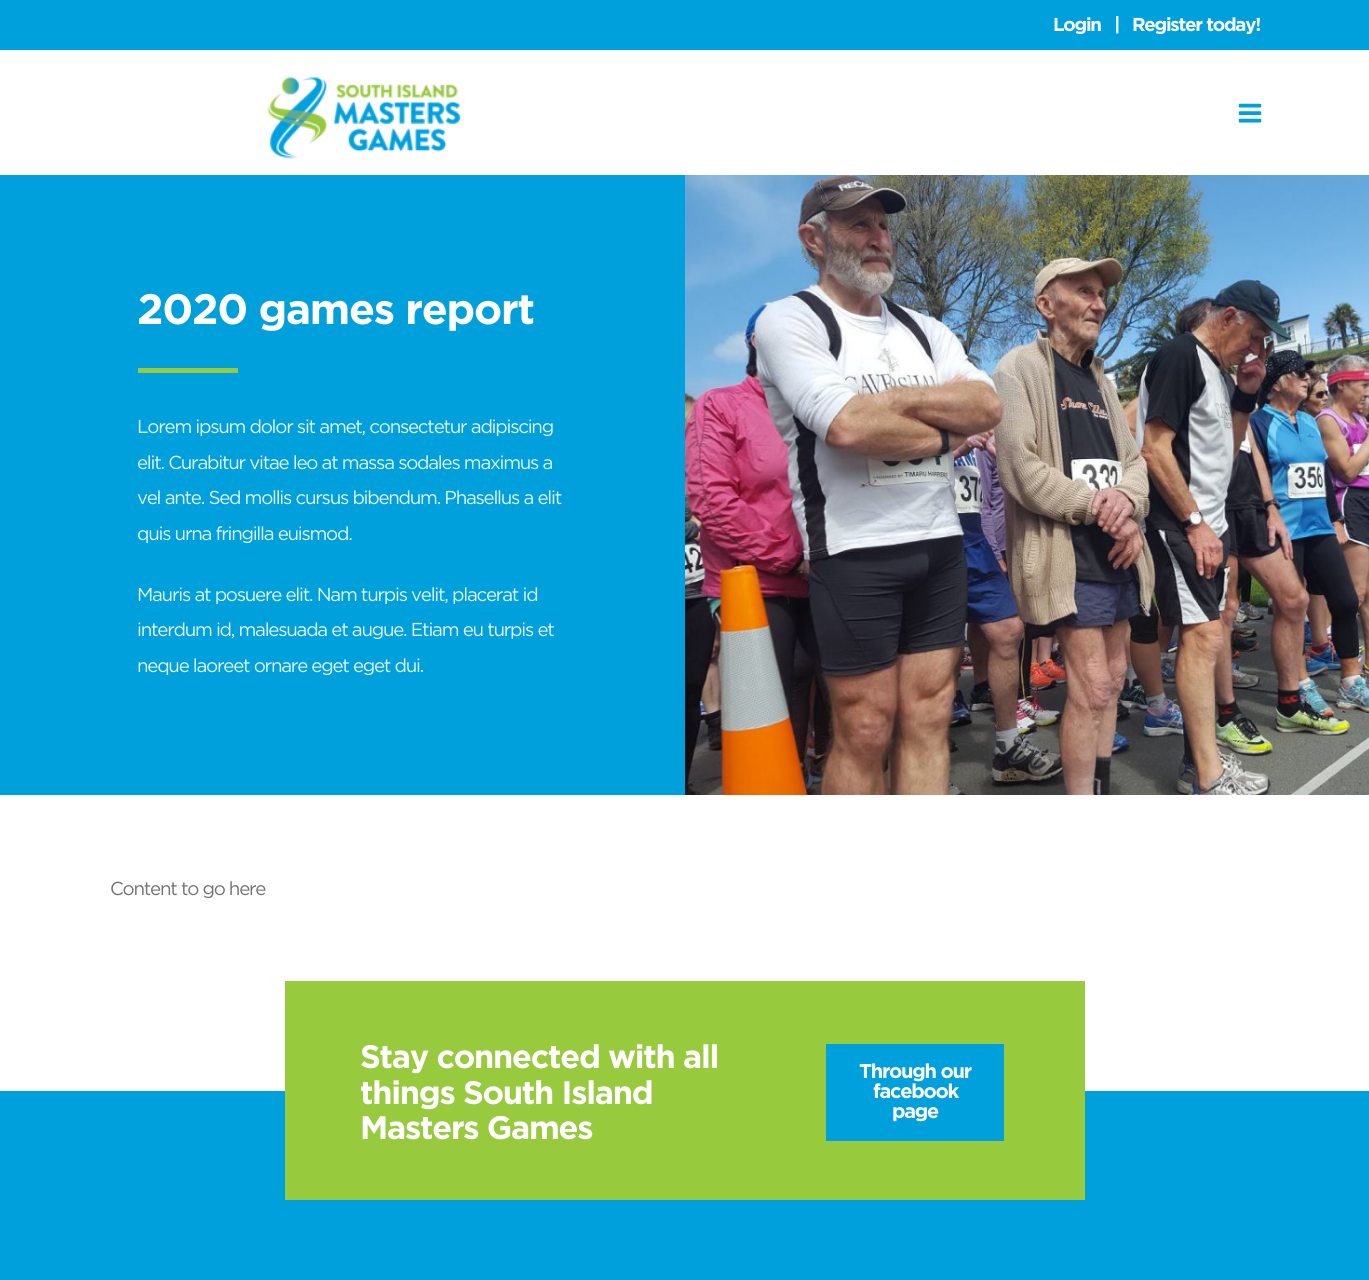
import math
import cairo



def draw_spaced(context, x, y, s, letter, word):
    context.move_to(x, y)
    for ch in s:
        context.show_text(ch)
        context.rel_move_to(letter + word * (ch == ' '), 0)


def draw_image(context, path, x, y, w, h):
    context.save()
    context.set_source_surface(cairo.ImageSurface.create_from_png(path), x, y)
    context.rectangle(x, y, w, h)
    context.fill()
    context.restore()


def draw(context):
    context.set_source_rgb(1, 1, 1)
    context.paint()
    context.set_source_rgb(0, 160 / 255, 221 / 255)
    context.rectangle(0, 0, 1369, 50)
    context.fill()
    draw_image(context, "images/1.png", 267, 77, 195, 82)
    draw_image(context, "images/2.png", 1238, 103, 24, 20)
    context.rectangle(0, 175, 685, 620)
    context.fill()
    context.set_source_rgb(151 / 255, 202 / 255, 61 / 255)
    context.rectangle(138, 368, 100, 5)
    context.fill()
    draw_image(context, "images/3.png", 685, 175, 684, 620)
    context.set_source_rgb(0, 160 / 255, 221 / 255)
    context.rectangle(0, 1091, 1369, 189)
    context.fill()
    context.set_source_rgb(151 / 255, 202 / 255, 61 / 255)
    context.rectangle(285, 981, 800, 219)
    context.fill()
    context.set_source_rgb(0, 160 / 255, 221 / 255)
    context.rectangle(826, 1044, 178, 97)
    context.fill()
    context.select_font_face("Gotham", cairo.FontSlant.NORMAL, cairo.FontWeight.BOLD)
    context.set_font_size(18.75)
    context.set_source_rgb(1, 1, 1)
    draw_spaced(context, 1053, 31, "Login", -1.25, 0)
    draw_spaced(context, 1114, 31, "|", -1.25, 0)
    draw_spaced(context, 1132, 31, "Register today!", -1.25, 0)
    context.set_font_size(42.5)
    draw_spaced(context, 137, 324, "2020 games report", -1.25, 0)
    context.select_font_face("Gotham")
    context.set_font_size(18.75)
    context.set_source_rgb(230 / 255, 246 / 255, 252 / 255)
    draw_spaced(context, 137, 433, "Lorem ipsum dolor sit amet, consectetur adipiscing", -1.25, 0)
    draw_spaced(context, 137, 469, "elit. Curabitur vitae leo at massa sodales maximus a", -1.25, 0)
    draw_spaced(context, 137, 504, "vel ante. Sed mollis cursus bibendum. Phasellus a elit", -1.25, 0)
    draw_spaced(context, 137, 540, "quis urna fringilla euismod.", -1.25, 0)
    draw_spaced(context, 137, 601, "Mauris at posuere elit. Nam turpis velit, placerat id", -1.25, 0)
    draw_spaced(context, 137, 636, "interdum id, malesuada et augue. Etiam eu turpis et", -1.25, 0)
    draw_spaced(context, 137, 672, "neque laoreet ornare eget eget dui.", -1.25, 0)
    context.set_source_rgb(114 / 255, 114 / 255, 114 / 255)
    draw_spaced(context, 110, 895, "Content to go here", -1.25, 0)
    context.select_font_face("Gotham", cairo.FontSlant.NORMAL, cairo.FontWeight.BOLD)
    context.set_font_size(32.5)
    context.set_source_rgb(1, 1, 1)
    draw_spaced(context, 360, 1068, "Stay connected with all", -1.25, 0)
    draw_spaced(context, 360, 1104, "things South Island", -1.25, 0)
    draw_spaced(context, 360, 1139, "Masters Games", -1.25, 0)
    context.set_font_size(20)
    draw_spaced(context, 859, 1078, "Through our", -1.25, 0)
    draw_spaced(context, 873, 1098, "facebook", -1.25, 0)
    draw_spaced(context, 892, 1118, "page", -1.25, 0)


surface = cairo.ImageSurface(cairo.Format.RGB24, 1369, 1280)
context = cairo.Context(surface)
options = cairo.FontOptions()
options.set_hint_metrics(cairo.HintMetrics.OFF)
options.set_hint_style(cairo.HintStyle.NONE)
context.set_font_options(options)
context.set_miter_limit(4)
draw(context)
surface.write_to_png("out.png")
